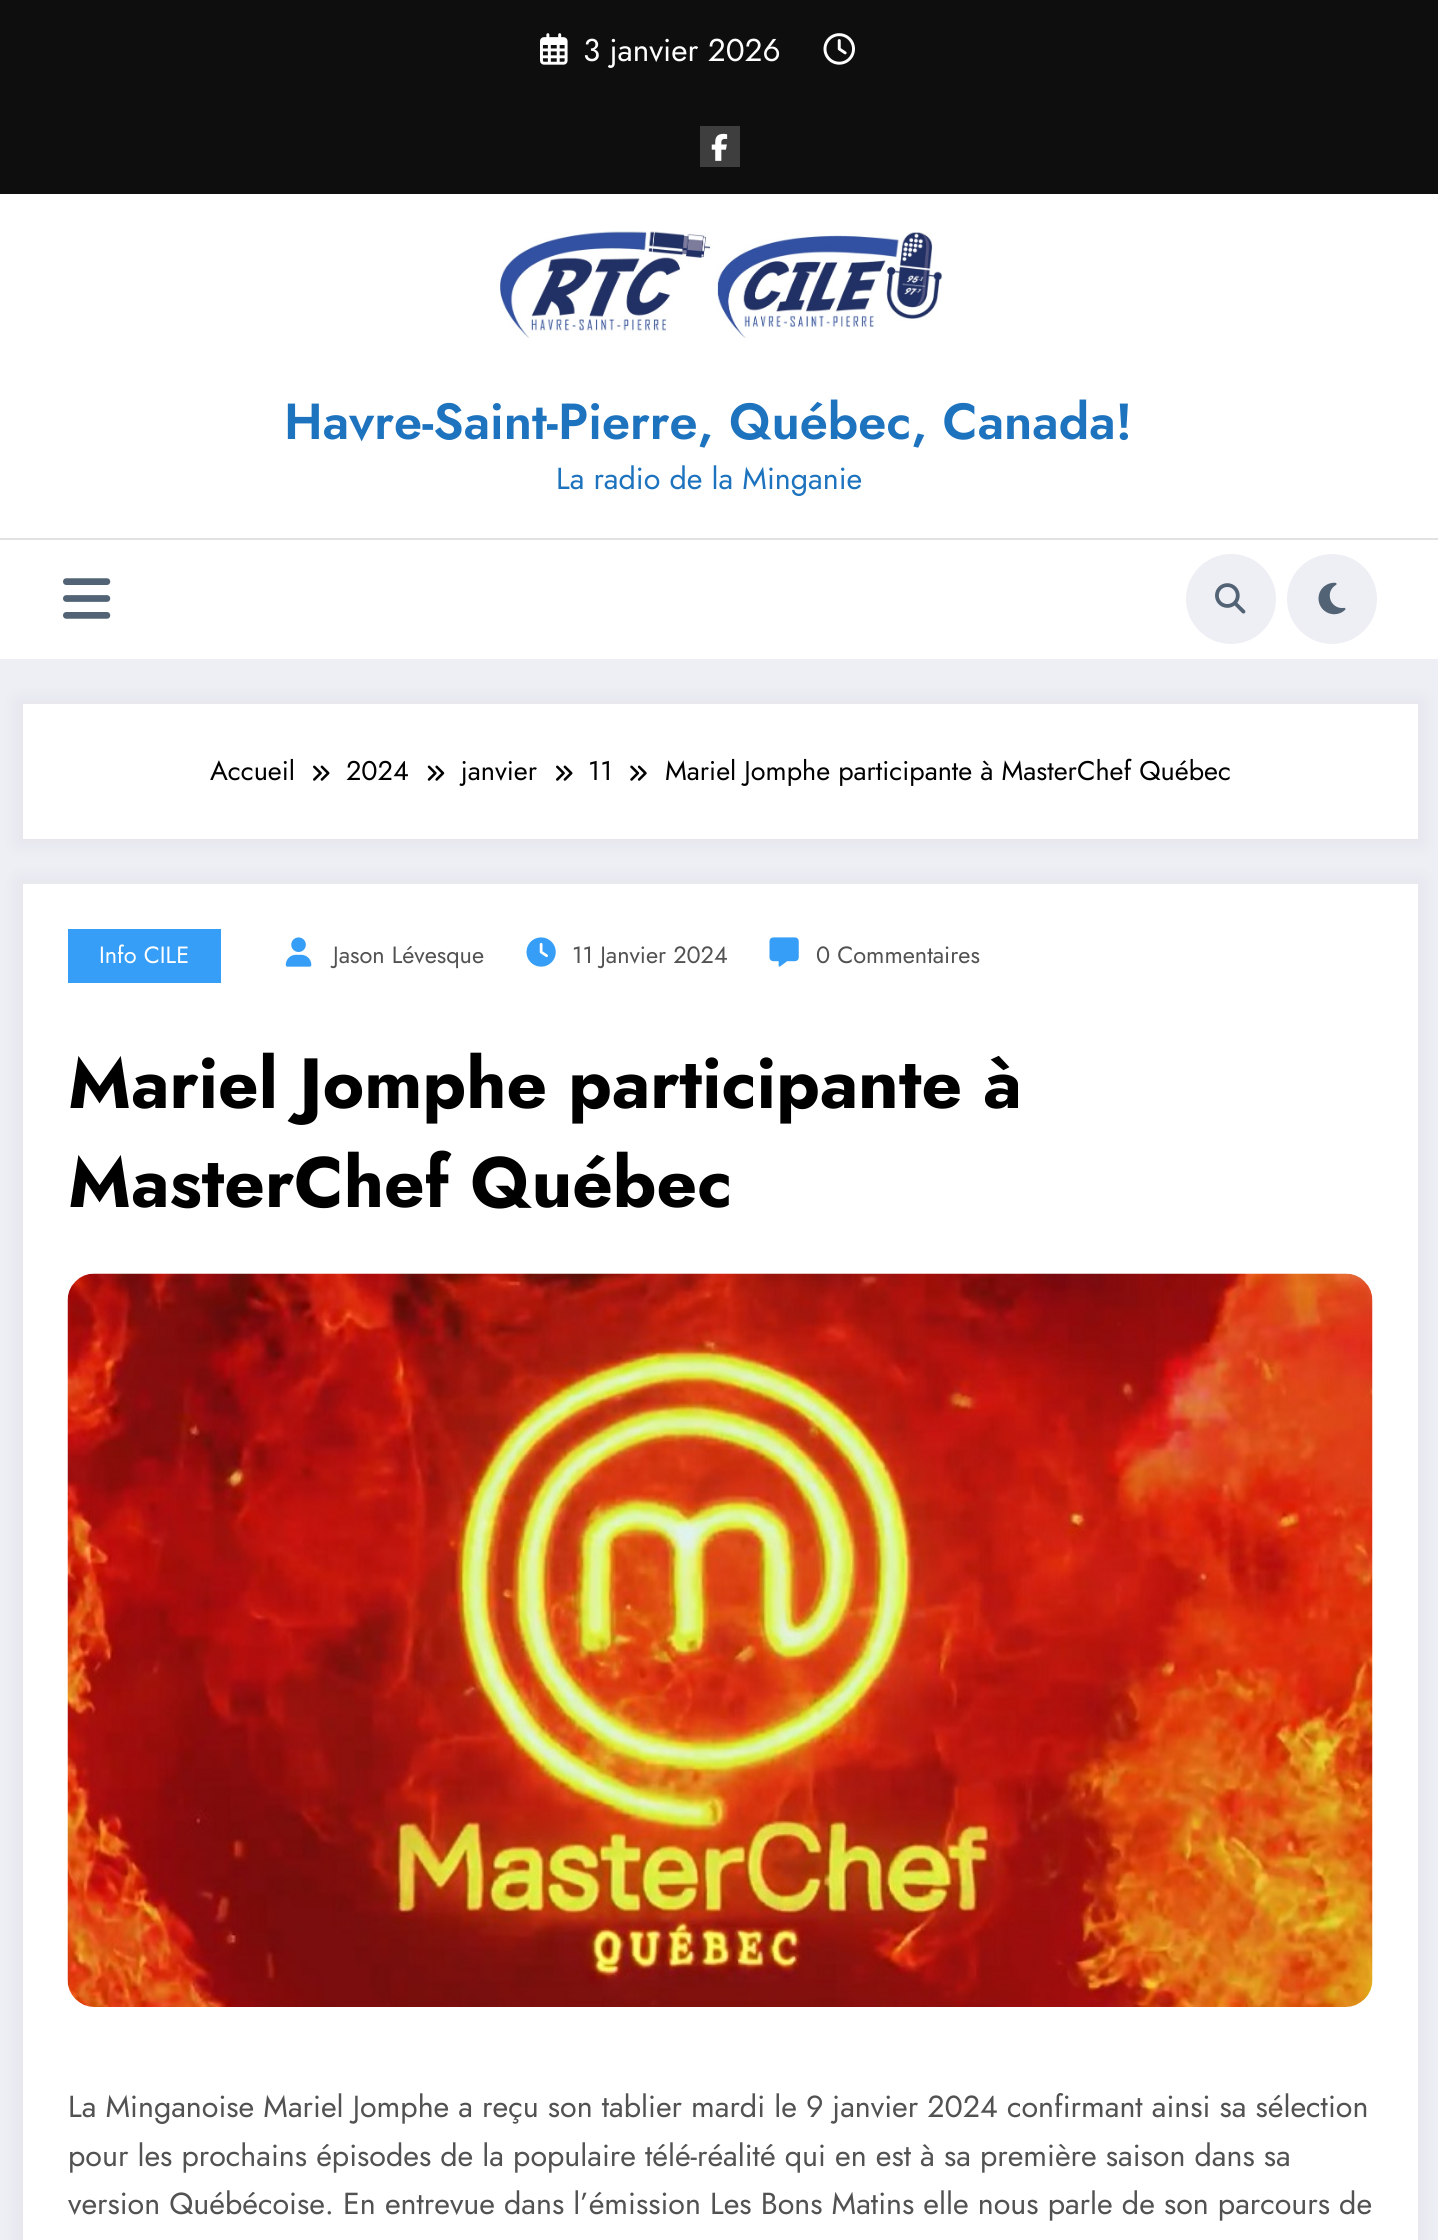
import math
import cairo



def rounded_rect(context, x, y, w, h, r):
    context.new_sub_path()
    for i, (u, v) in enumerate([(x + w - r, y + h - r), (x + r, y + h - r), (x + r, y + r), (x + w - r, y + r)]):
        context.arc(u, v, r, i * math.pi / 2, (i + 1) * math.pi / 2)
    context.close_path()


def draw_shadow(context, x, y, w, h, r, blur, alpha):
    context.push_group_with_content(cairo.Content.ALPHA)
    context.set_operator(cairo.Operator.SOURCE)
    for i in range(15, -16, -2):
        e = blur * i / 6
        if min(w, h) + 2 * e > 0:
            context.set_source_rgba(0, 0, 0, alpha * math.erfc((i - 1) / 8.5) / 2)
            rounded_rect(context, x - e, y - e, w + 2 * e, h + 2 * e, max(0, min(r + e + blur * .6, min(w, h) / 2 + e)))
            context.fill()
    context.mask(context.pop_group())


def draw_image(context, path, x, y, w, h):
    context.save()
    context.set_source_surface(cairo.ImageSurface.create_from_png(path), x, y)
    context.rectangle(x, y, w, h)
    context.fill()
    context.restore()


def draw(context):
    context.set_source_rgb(238 / 255, 238 / 255, 245 / 255)
    context.paint()
    context.set_source_rgb(14 / 255, 14 / 255, 14 / 255)
    context.rectangle(0, 0, 1438, 194)
    context.fill()
    draw_image(context, "images/1.png", 540, 33, 28, 32)
    draw_image(context, "images/2.png", 823, 33, 32, 32)
    context.set_source_rgb(62 / 255, 62 / 255, 62 / 255)
    context.rectangle(700, 126, 40, 41)
    context.fill()
    draw_image(context, "images/3.png", 711, 133, 17, 28)
    context.set_source_rgb(1, 1, 1)
    context.rectangle(0, 194, 1438, 465)
    context.fill()
    draw_image(context, "images/4.png", 500, 231, 443, 107)
    context.set_source_rgb(225 / 255, 225 / 255, 225 / 255)
    context.rectangle(0, 538, 1438, 2)
    context.fill()
    draw_image(context, "images/5.png", 63, 578, 48, 41)
    context.set_source_rgb(238 / 255, 238 / 255, 245 / 255)
    context.arc(1231, 599, 45, 0, 2 * math.pi)
    context.fill()
    draw_image(context, "images/6.png", 1215, 583, 31, 31)
    context.arc(1332, 599, 45, 0, 2 * math.pi)
    context.fill()
    draw_image(context, "images/7.png", 1318, 582, 28, 33)
    context.set_source_rgb(23 / 255, 23 / 255, 35 / 255)
    draw_shadow(context, 18, 700, 1404, 144, 0, 9, 0.05)
    context.set_source_rgb(1, 1, 1)
    context.rectangle(23, 704, 1395, 135)
    context.fill()
    draw_image(context, "images/8.png", 313, 765, 17, 16)
    draw_image(context, "images/9.png", 427, 765, 18, 16)
    draw_image(context, "images/8.png", 556, 765, 17, 16)
    draw_image(context, "images/10.png", 630, 765, 17, 16)
    context.set_source_rgb(23 / 255, 23 / 255, 35 / 255)
    draw_shadow(context, 18, 880, 1404, 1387, 0, 9, 0.05)
    context.set_source_rgb(1, 1, 1)
    context.rectangle(23, 884, 1395, 1356)
    context.fill()
    context.set_source_rgb(54 / 255, 158 / 255, 246 / 255)
    context.rectangle(68, 929, 153, 54)
    context.fill()
    draw_image(context, "images/11.png", 285, 937, 27, 30)
    draw_image(context, "images/12.png", 526, 937, 30, 30)
    draw_image(context, "images/13.png", 769, 937, 30, 30)
    draw_image(context, "images/14.png", 67, 1273, 1306, 734)
    context.select_font_face("Jost")
    context.set_font_size(31.5)
    context.set_source_rgb(1, 1, 1)
    context.move_to(583, 61)
    context.show_text("3 janvier 2026")
    context.select_font_face("Jost SemiBold")
    context.set_font_size(50.6)
    context.set_source_rgb(30 / 255, 115 / 255, 190 / 255)
    context.move_to(284, 439)
    context.show_text("Havre-Saint-Pierre, Québec, Canada!")
    context.select_font_face("Jost")
    context.set_font_size(30.4)
    context.move_to(556, 489)
    context.show_text("La radio de la Minganie")
    context.set_font_size(27)
    context.set_source_rgb(0, 0, 0)
    context.move_to(210, 780)
    context.show_text("Accueil")
    context.move_to(346, 780)
    context.show_text("2024")
    context.move_to(461, 780)
    context.show_text("janvier")
    context.move_to(588, 780)
    context.show_text("11")
    context.move_to(665, 780)
    context.show_text("Mariel Jomphe participante à MasterChef Québec")
    context.set_font_size(23.5)
    context.set_source_rgb(1, 1, 1)
    context.move_to(99, 963)
    context.show_text("Info CILE")
    context.set_source_rgb(82 / 255, 82 / 255, 82 / 255)
    context.move_to(333, 963)
    context.show_text("Jason Lévesque")
    context.move_to(572, 963)
    context.show_text("11 Janvier 2024")
    context.move_to(816, 963)
    context.show_text("0 Commentaires")
    context.select_font_face("Jost", cairo.FontSlant.NORMAL, cairo.FontWeight.BOLD)
    context.set_font_size(70.9)
    context.set_source_rgb(0, 0, 0)
    context.move_to(68, 1108)
    context.show_text("Mariel Jomphe participante à")
    context.move_to(68, 1207)
    context.show_text("MasterChef Québec")
    context.select_font_face("Jost")
    context.set_font_size(30.4)
    context.set_source_rgb(82 / 255, 82 / 255, 82 / 255)
    context.move_to(68, 2117)
    context.show_text("La Minganoise Mariel Jomphe a reçu son tablier mardi le 9 janvier 2024 confirmant ainsi sa sélection")
    context.move_to(68, 2166)
    context.show_text("pour les prochains épisodes de la populaire télé-réalité qui en est à sa première saison dans sa")
    context.move_to(68, 2214)
    context.show_text("version Québécoise. En entrevue dans l’émission Les Bons Matins elle nous parle de son parcours de")


surface = cairo.ImageSurface(cairo.Format.RGB24, 1438, 2240)
context = cairo.Context(surface)
options = cairo.FontOptions()
options.set_hint_metrics(cairo.HintMetrics.OFF)
options.set_hint_style(cairo.HintStyle.NONE)
context.set_font_options(options)
context.set_miter_limit(4)
draw(context)
surface.write_to_png("out.png")
